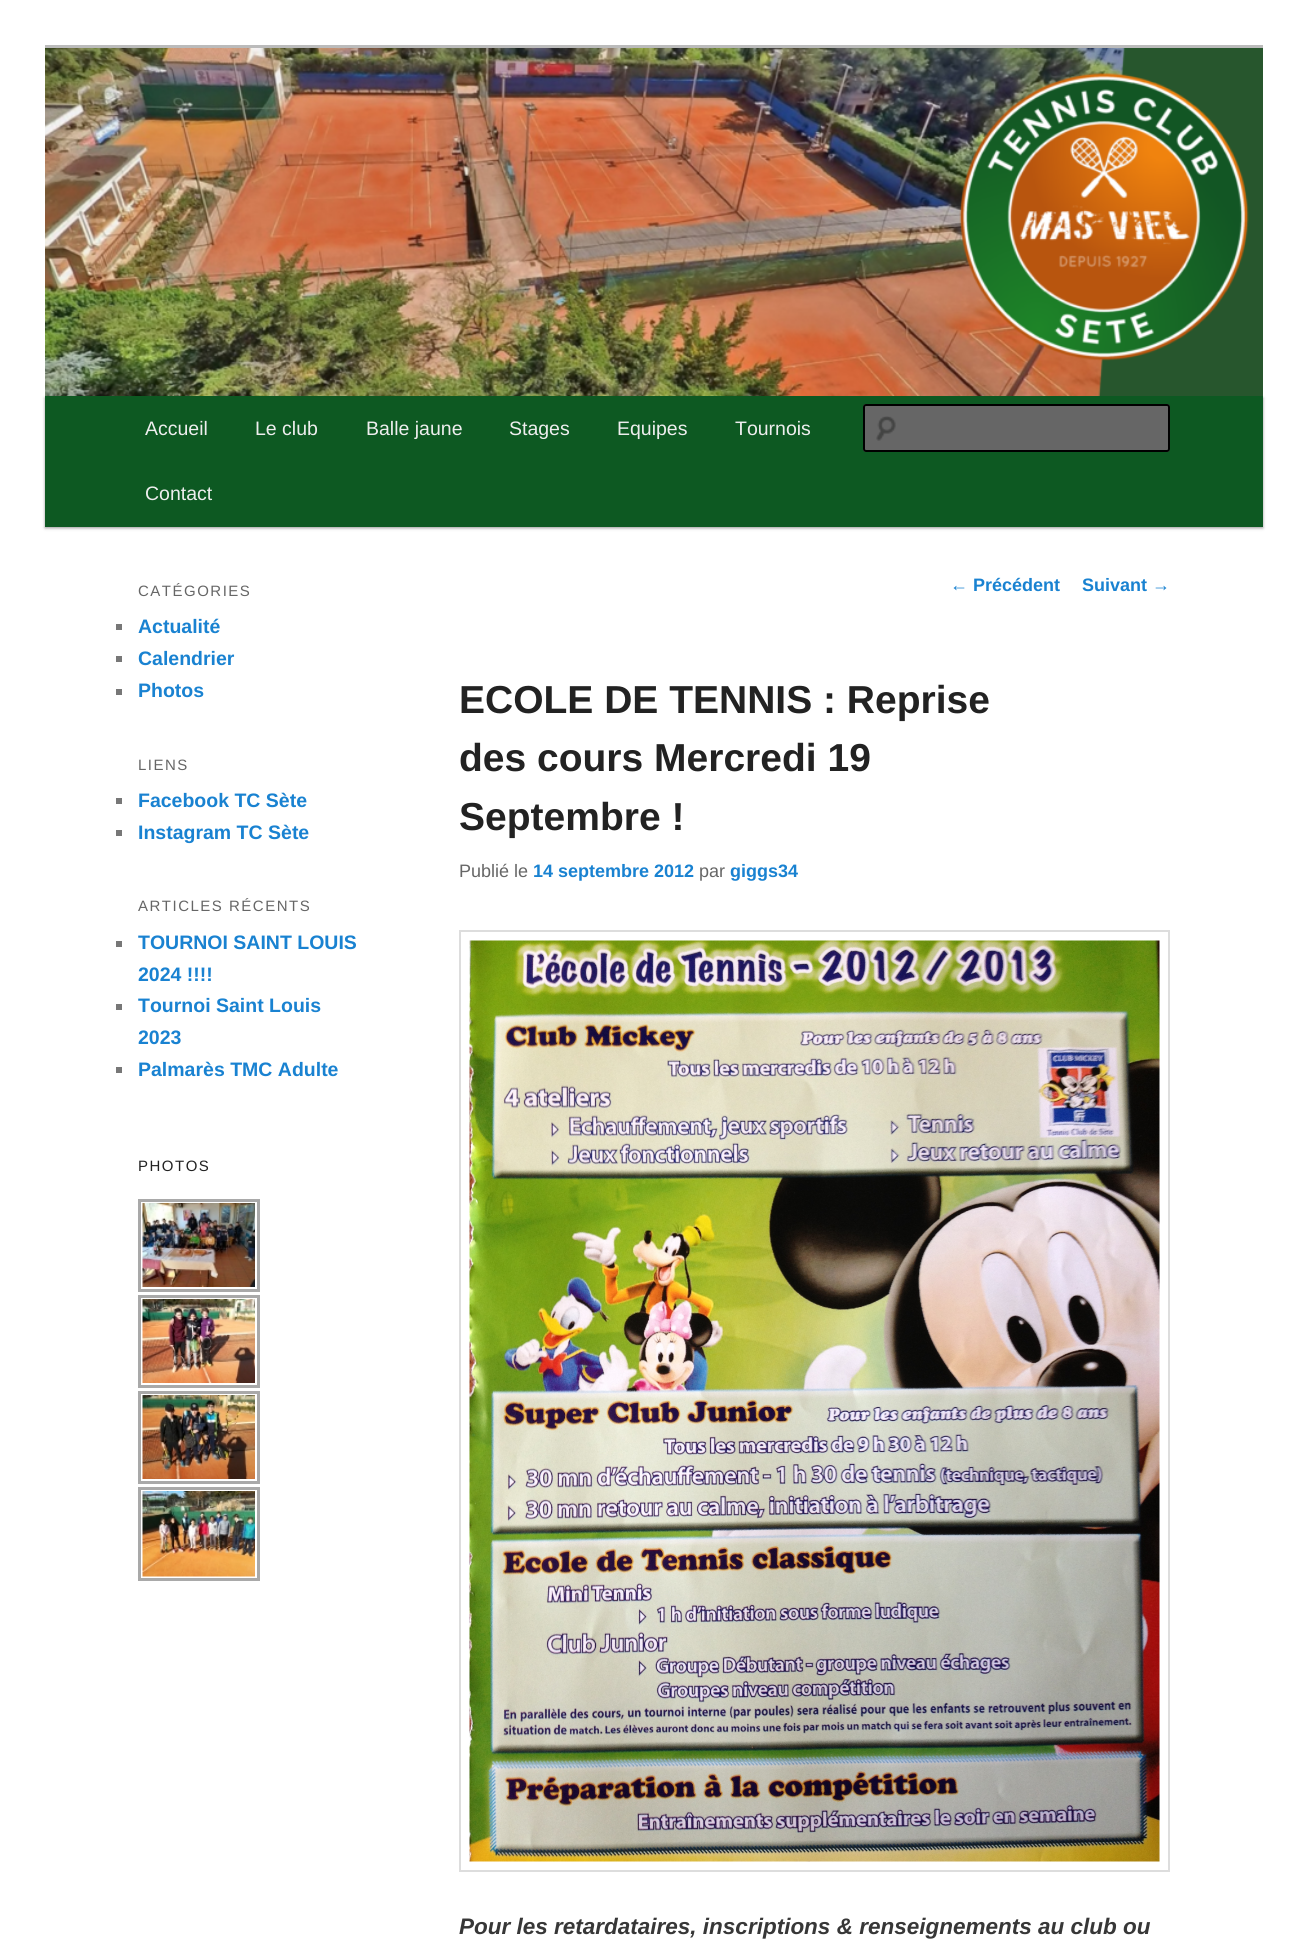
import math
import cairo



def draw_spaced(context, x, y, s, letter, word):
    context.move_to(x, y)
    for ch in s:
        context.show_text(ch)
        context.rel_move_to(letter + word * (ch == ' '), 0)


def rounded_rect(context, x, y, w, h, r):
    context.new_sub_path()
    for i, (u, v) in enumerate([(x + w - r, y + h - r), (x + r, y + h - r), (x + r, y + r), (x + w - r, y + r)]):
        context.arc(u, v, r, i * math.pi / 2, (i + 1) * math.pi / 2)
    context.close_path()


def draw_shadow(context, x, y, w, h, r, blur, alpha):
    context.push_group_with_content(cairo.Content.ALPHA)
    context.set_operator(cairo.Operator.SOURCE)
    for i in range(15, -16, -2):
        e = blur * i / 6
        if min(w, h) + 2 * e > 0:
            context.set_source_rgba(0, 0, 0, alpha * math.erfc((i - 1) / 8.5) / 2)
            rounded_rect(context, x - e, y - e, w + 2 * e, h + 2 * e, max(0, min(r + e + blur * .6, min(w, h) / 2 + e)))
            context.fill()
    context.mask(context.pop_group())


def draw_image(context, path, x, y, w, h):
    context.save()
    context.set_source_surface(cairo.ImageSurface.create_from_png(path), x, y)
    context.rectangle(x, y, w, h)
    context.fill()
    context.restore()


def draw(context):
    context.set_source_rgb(1, 1, 1)
    context.paint()
    context.set_source_rgb(187 / 255, 187 / 255, 187 / 255)
    context.rectangle(45, 45, 1218, 3)
    context.fill()
    context.set_source_rgb(0, 0, 0)
    draw_shadow(context, 45, 398, 1218, 130, 0, 1.5, 0.4)
    draw_image(context, "images/1.png", 45, 48, 1218, 348)
    context.set_source_rgb(13 / 255, 89 / 255, 34 / 255)
    context.rectangle(45, 396, 1218, 131)
    context.fill()
    context.set_source_rgb(102 / 255, 102 / 255, 102 / 255)
    rounded_rect(context, 863, 404, 307, 48, 3)
    context.fill()
    draw_image(context, "images/2.png", 876, 416, 20, 25)
    rounded_rect(context, 864, 405, 305, 46, 2)
    context.set_source_rgb(0, 0, 0)
    context.stroke()
    context.set_source_rgb(119 / 255, 119 / 255, 119 / 255)
    context.rectangle(116, 624, 6, 6)
    context.fill()
    context.rectangle(116, 656, 6, 6)
    context.fill()
    context.rectangle(116, 689, 6, 6)
    context.fill()
    context.rectangle(116, 798, 6, 6)
    context.fill()
    context.rectangle(116, 830, 6, 6)
    context.fill()
    context.rectangle(116, 941, 6, 6)
    context.fill()
    context.rectangle(116, 1004, 6, 6)
    context.fill()
    context.rectangle(116, 1067, 6, 6)
    context.fill()
    context.rectangle(139.5, 1200.5, 119, 90)
    context.set_source_rgb(169 / 255, 169 / 255, 169 / 255)
    context.set_line_width(3)
    context.stroke()
    draw_image(context, "images/3.png", 142, 1203, 113, 84)
    context.rectangle(139.5, 1296.5, 119, 90)
    context.stroke()
    draw_image(context, "images/4.png", 142, 1299, 113, 84)
    context.rectangle(139.5, 1392.5, 119, 90)
    context.stroke()
    draw_image(context, "images/5.png", 142, 1395, 113, 84)
    context.rectangle(139.5, 1488.5, 119, 91)
    context.stroke()
    draw_image(context, "images/6.png", 142, 1491, 113, 86)
    context.rectangle(460, 931, 709, 940)
    context.set_source_rgb(221 / 255, 221 / 255, 221 / 255)
    context.set_line_width(2)
    context.stroke()
    draw_image(context, "images/7.png", 469, 940, 691, 922)
    context.select_font_face("Liberation Sans")
    context.set_font_size(19.5)
    context.set_source_rgb(238 / 255, 238 / 255, 238 / 255)
    context.move_to(145, 435)
    context.show_text("Accueil")
    context.move_to(255, 435)
    context.show_text("Le club")
    context.move_to(366, 435)
    context.show_text("Balle jaune")
    context.move_to(509, 435)
    context.show_text("Stages")
    context.move_to(617, 435)
    context.show_text("Equipes")
    context.move_to(735, 435)
    context.show_text("Tournois")
    context.move_to(145, 500)
    context.show_text("Contact")
    context.set_font_size(15)
    context.set_source_rgb(102 / 255, 102 / 255, 102 / 255)
    draw_spaced(context, 138, 596, "CATÉGORIES", 1.5, 0)
    context.select_font_face("Liberation Sans", cairo.FontSlant.NORMAL, cairo.FontWeight.BOLD)
    context.set_font_size(19.5)
    context.set_source_rgb(25 / 255, 130 / 255, 209 / 255)
    context.move_to(138, 633)
    context.show_text("Actualité")
    context.move_to(138, 665)
    context.show_text("Calendrier")
    context.move_to(138, 697)
    context.show_text("Photos")
    context.select_font_face("Liberation Sans")
    context.set_font_size(15)
    context.set_source_rgb(102 / 255, 102 / 255, 102 / 255)
    draw_spaced(context, 138, 770, "LIENS", 1.5, 0)
    context.select_font_face("Liberation Sans", cairo.FontSlant.NORMAL, cairo.FontWeight.BOLD)
    context.set_font_size(19.5)
    context.set_source_rgb(25 / 255, 130 / 255, 209 / 255)
    context.move_to(138, 807)
    context.show_text("Facebook TC Sète")
    context.move_to(138, 839)
    context.show_text("Instagram TC Sète")
    context.select_font_face("Liberation Sans")
    context.set_font_size(15)
    context.set_source_rgb(102 / 255, 102 / 255, 102 / 255)
    draw_spaced(context, 138, 911, "ARTICLES RÉCENTS", 1.5, 0)
    context.select_font_face("Liberation Sans", cairo.FontSlant.NORMAL, cairo.FontWeight.BOLD)
    context.set_font_size(19.5)
    context.set_source_rgb(25 / 255, 130 / 255, 209 / 255)
    context.move_to(138, 949)
    context.show_text("TOURNOI SAINT LOUIS")
    context.move_to(138, 981)
    context.show_text("2024 !!!!")
    context.move_to(138, 1012)
    context.show_text("Tournoi Saint Louis")
    context.move_to(138, 1044)
    context.show_text("2023")
    context.move_to(138, 1076)
    context.show_text("Palmarès TMC Adulte")
    context.select_font_face("Liberation Sans")
    context.set_font_size(15)
    context.set_source_rgb(34 / 255, 34 / 255, 34 / 255)
    draw_spaced(context, 138, 1171, "PHOTOS", 1.5, 0)
    context.set_font_size(18)
    context.set_source_rgb(25 / 255, 130 / 255, 209 / 255)
    context.move_to(950, 591)
    context.show_text("←")
    context.select_font_face("Liberation Sans", cairo.FontSlant.NORMAL, cairo.FontWeight.BOLD)
    context.move_to(973, 591)
    context.show_text("Précédent")
    context.move_to(1082, 591)
    context.show_text("Suivant")
    context.select_font_face("Liberation Sans")
    context.move_to(1152, 591)
    context.show_text("→")
    context.select_font_face("Liberation Sans", cairo.FontSlant.NORMAL, cairo.FontWeight.BOLD)
    context.set_font_size(39)
    context.set_source_rgb(34 / 255, 34 / 255, 34 / 255)
    context.move_to(459, 713)
    context.show_text("ECOLE DE TENNIS : Reprise")
    context.move_to(459, 771)
    context.show_text("des cours Mercredi 19")
    context.move_to(459, 830)
    context.show_text("Septembre !")
    context.select_font_face("Liberation Sans")
    context.set_font_size(18)
    context.set_source_rgb(102 / 255, 102 / 255, 102 / 255)
    context.move_to(459, 877)
    context.show_text("Publié le")
    context.select_font_face("Liberation Sans", cairo.FontSlant.NORMAL, cairo.FontWeight.BOLD)
    context.set_source_rgb(25 / 255, 130 / 255, 209 / 255)
    context.move_to(533, 877)
    context.show_text("14 septembre 2012")
    context.select_font_face("Liberation Sans")
    context.set_source_rgb(102 / 255, 102 / 255, 102 / 255)
    context.move_to(699, 877)
    context.show_text("par")
    context.select_font_face("Liberation Sans", cairo.FontSlant.NORMAL, cairo.FontWeight.BOLD)
    context.set_source_rgb(25 / 255, 130 / 255, 209 / 255)
    context.move_to(730, 877)
    context.show_text("giggs34")
    context.select_font_face("Liberation Sans", cairo.FontSlant.ITALIC, cairo.FontWeight.BOLD)
    context.set_font_size(22.5)
    context.set_source_rgb(55 / 255, 55 / 255, 55 / 255)
    context.move_to(459, 1934)
    context.show_text("Pour les retardataires, inscriptions & renseignements au club ou")


surface = cairo.ImageSurface(cairo.Format.RGB24, 1307, 1940)
context = cairo.Context(surface)
options = cairo.FontOptions()
options.set_hint_metrics(cairo.HintMetrics.OFF)
options.set_hint_style(cairo.HintStyle.NONE)
context.set_font_options(options)
context.set_miter_limit(4)
draw(context)
surface.write_to_png("out.png")
